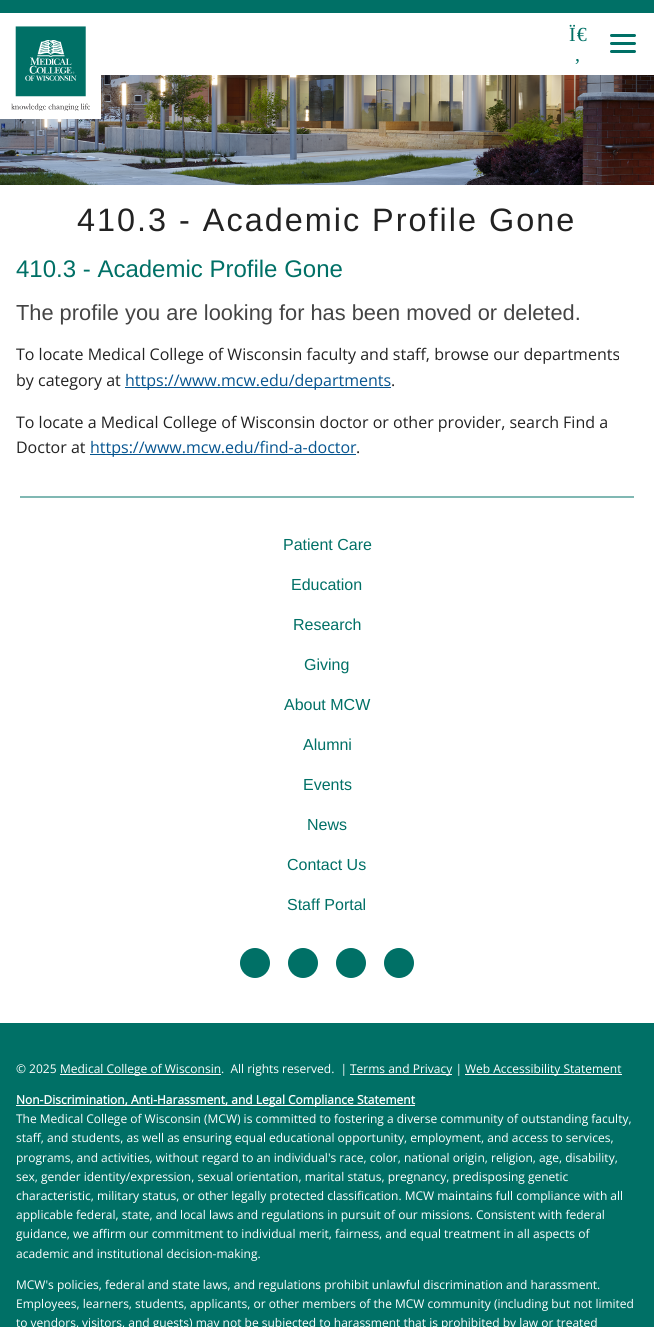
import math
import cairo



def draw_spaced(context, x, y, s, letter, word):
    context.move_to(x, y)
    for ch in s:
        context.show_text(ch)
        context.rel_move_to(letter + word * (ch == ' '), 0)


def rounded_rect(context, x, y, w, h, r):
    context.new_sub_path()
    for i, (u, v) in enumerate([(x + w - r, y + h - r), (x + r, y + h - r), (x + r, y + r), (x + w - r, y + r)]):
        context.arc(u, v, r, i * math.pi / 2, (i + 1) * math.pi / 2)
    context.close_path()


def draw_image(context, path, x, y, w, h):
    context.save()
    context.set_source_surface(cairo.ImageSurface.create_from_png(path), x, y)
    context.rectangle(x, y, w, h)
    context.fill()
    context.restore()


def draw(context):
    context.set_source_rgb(1, 1, 1)
    context.paint()
    context.set_source_rgb(0, 112 / 255, 102 / 255)
    context.rectangle(0, 0, 654, 13)
    context.fill()
    draw_image(context, "images/2.png", 0, 75, 654, 110)
    draw_image(context, "images/1.png", 0, 26, 101, 93)
    rounded_rect(context, 610, 42, 26, 3, 1.5)
    context.fill()
    rounded_rect(context, 610, 34, 26, 3, 1.5)
    context.fill()
    rounded_rect(context, 610, 50, 26, 3, 1.5)
    context.fill()
    context.set_source_rgb(6 / 255, 85 / 255, 144 / 255)
    context.rectangle(125, 387, 266, 1)
    context.fill()
    context.rectangle(90, 454, 266, 1)
    context.fill()
    context.set_source_rgb(128 / 255, 184 / 255, 179 / 255)
    context.rectangle(20, 496, 614, 2)
    context.fill()
    context.set_source_rgb(0, 112 / 255, 102 / 255)
    context.arc(255, 963, 15, 0, 2 * math.pi)
    context.fill()
    context.arc(303, 963, 15, 0, 2 * math.pi)
    context.fill()
    context.arc(351, 963, 15, 0, 2 * math.pi)
    context.fill()
    context.arc(399, 963, 15, 0, 2 * math.pi)
    context.fill()
    context.rectangle(0, 1023, 654, 304)
    context.fill()
    context.set_source_rgb(1, 1, 1)
    context.rectangle(60, 1074, 161, 1)
    context.fill()
    context.rectangle(350, 1074, 102, 1)
    context.fill()
    context.rectangle(465, 1074, 157, 1)
    context.fill()
    context.rectangle(16, 1105, 399, 1)
    context.fill()
    context.select_font_face("Liberation Serif")
    context.set_font_size(20)
    context.set_source_rgb(0, 112 / 255, 102 / 255)
    draw_spaced(context, 569, 41, "Ï€", 1, 0)
    draw_spaced(context, 574, 61, "‚", 1, 0)
    context.select_font_face("Liberation Sans")
    context.set_font_size(32.4)
    context.set_source_rgb(34 / 255, 34 / 255, 34 / 255)
    draw_spaced(context, 77, 231, "410.3 - Academic Profile Gone", 2, 0)
    context.set_font_size(24)
    context.set_source_rgb(0, 112 / 255, 102 / 255)
    context.move_to(16, 277)
    context.show_text("410.3 - Academic Profile Gone")
    context.set_font_size(21.8)
    context.set_source_rgb(68 / 255, 68 / 255, 68 / 255)
    context.move_to(16, 320)
    context.show_text("The profile you are looking for has been moved or deleted.")
    context.select_font_face("Open Sans")
    context.set_font_size(16)
    context.set_source_rgb(34 / 255, 34 / 255, 34 / 255)
    context.move_to(16, 360)
    context.show_text("To locate Medical College of Wisconsin faculty and staff, browse our departments")
    context.move_to(16, 386)
    context.show_text("by category at")
    context.set_source_rgb(6 / 255, 85 / 255, 144 / 255)
    context.move_to(125, 386)
    context.show_text("https://www.mcw.edu/departments")
    context.set_source_rgb(34 / 255, 34 / 255, 34 / 255)
    context.move_to(391, 386)
    context.show_text(".")
    context.move_to(16, 428)
    context.show_text("To locate a Medical College of Wisconsin doctor or other provider, search Find a")
    context.move_to(16, 453)
    context.show_text("Doctor at")
    context.set_source_rgb(6 / 255, 85 / 255, 144 / 255)
    context.move_to(90, 453)
    context.show_text("https://www.mcw.edu/find-a-doctor")
    context.set_source_rgb(34 / 255, 34 / 255, 34 / 255)
    context.move_to(356, 453)
    context.show_text(".")
    context.select_font_face("Liberation Sans")
    context.set_source_rgb(0, 112 / 255, 102 / 255)
    context.move_to(283, 550)
    context.show_text("Patient Care")
    context.move_to(291, 590)
    context.show_text("Education")
    context.move_to(293, 630)
    context.show_text("Research")
    context.move_to(304, 670)
    context.show_text("Giving")
    context.move_to(284, 710)
    context.show_text("About MCW")
    context.move_to(303, 750)
    context.show_text("Alumni")
    context.move_to(303, 790)
    context.show_text("Events")
    context.move_to(307, 830)
    context.show_text("News")
    context.move_to(287, 870)
    context.show_text("Contact Us")
    context.move_to(287, 910)
    context.show_text("Staff Portal")
    context.select_font_face("Open Sans")
    context.set_font_size(12)
    context.set_source_rgb(1, 1, 1)
    context.move_to(16, 1073)
    context.show_text("© 2025")
    context.move_to(60, 1073)
    context.show_text("Medical College of Wisconsin.  All rights reserved.  |")
    context.move_to(350, 1073)
    context.show_text("Terms and Privacy |")
    context.move_to(465, 1073)
    context.show_text("Web Accessibility Statement")
    context.select_font_face("Open Sans", cairo.FontSlant.NORMAL, cairo.FontWeight.BOLD)
    context.move_to(16, 1104)
    context.show_text("Non-Discrimination, Anti-Harassment, and Legal Compliance Statement")
    context.select_font_face("Open Sans")
    context.move_to(16, 1123)
    context.show_text("The Medical College of Wisconsin (MCW) is committed to fostering a diverse community of outstanding faculty,")
    context.move_to(16, 1142)
    context.show_text("staff, and students, as well as ensuring equal educational opportunity, employment, and access to services,")
    context.move_to(16, 1162)
    context.show_text("programs, and activities, without regard to an individual's race, color, national origin, religion, age, disability,")
    context.move_to(16, 1181)
    context.show_text("sex, gender identity/expression, sexual orientation, marital status, pregnancy, predisposing genetic")
    context.move_to(16, 1200)
    context.show_text("characteristic, military status, or other legally protected classification. MCW maintains full compliance with all")
    context.move_to(16, 1219)
    context.show_text("applicable federal, state, and local laws and regulations in pursuit of our missions. Consistent with federal")
    context.move_to(16, 1238)
    context.show_text("guidance, we affirm our commitment to individual merit, fairness, and equal treatment in all aspects of")
    context.move_to(16, 1258)
    context.show_text("academic and institutional decision-making.")
    context.move_to(16, 1289)
    context.show_text("MCW's policies, federal and state laws, and regulations prohibit unlawful discrimination and harassment.")
    context.move_to(16, 1308)
    context.show_text("Employees, learners, students, applicants, or other members of the MCW community (including but not limited")
    context.move_to(16, 1327)
    context.show_text("to vendors, visitors, and guests) may not be subjected to harassment that is prohibited by law or treated")


surface = cairo.ImageSurface(cairo.Format.RGB24, 654, 1327)
context = cairo.Context(surface)
options = cairo.FontOptions()
options.set_hint_metrics(cairo.HintMetrics.OFF)
options.set_hint_style(cairo.HintStyle.NONE)
context.set_font_options(options)
context.set_miter_limit(4)
draw(context)
surface.write_to_png("out.png")
